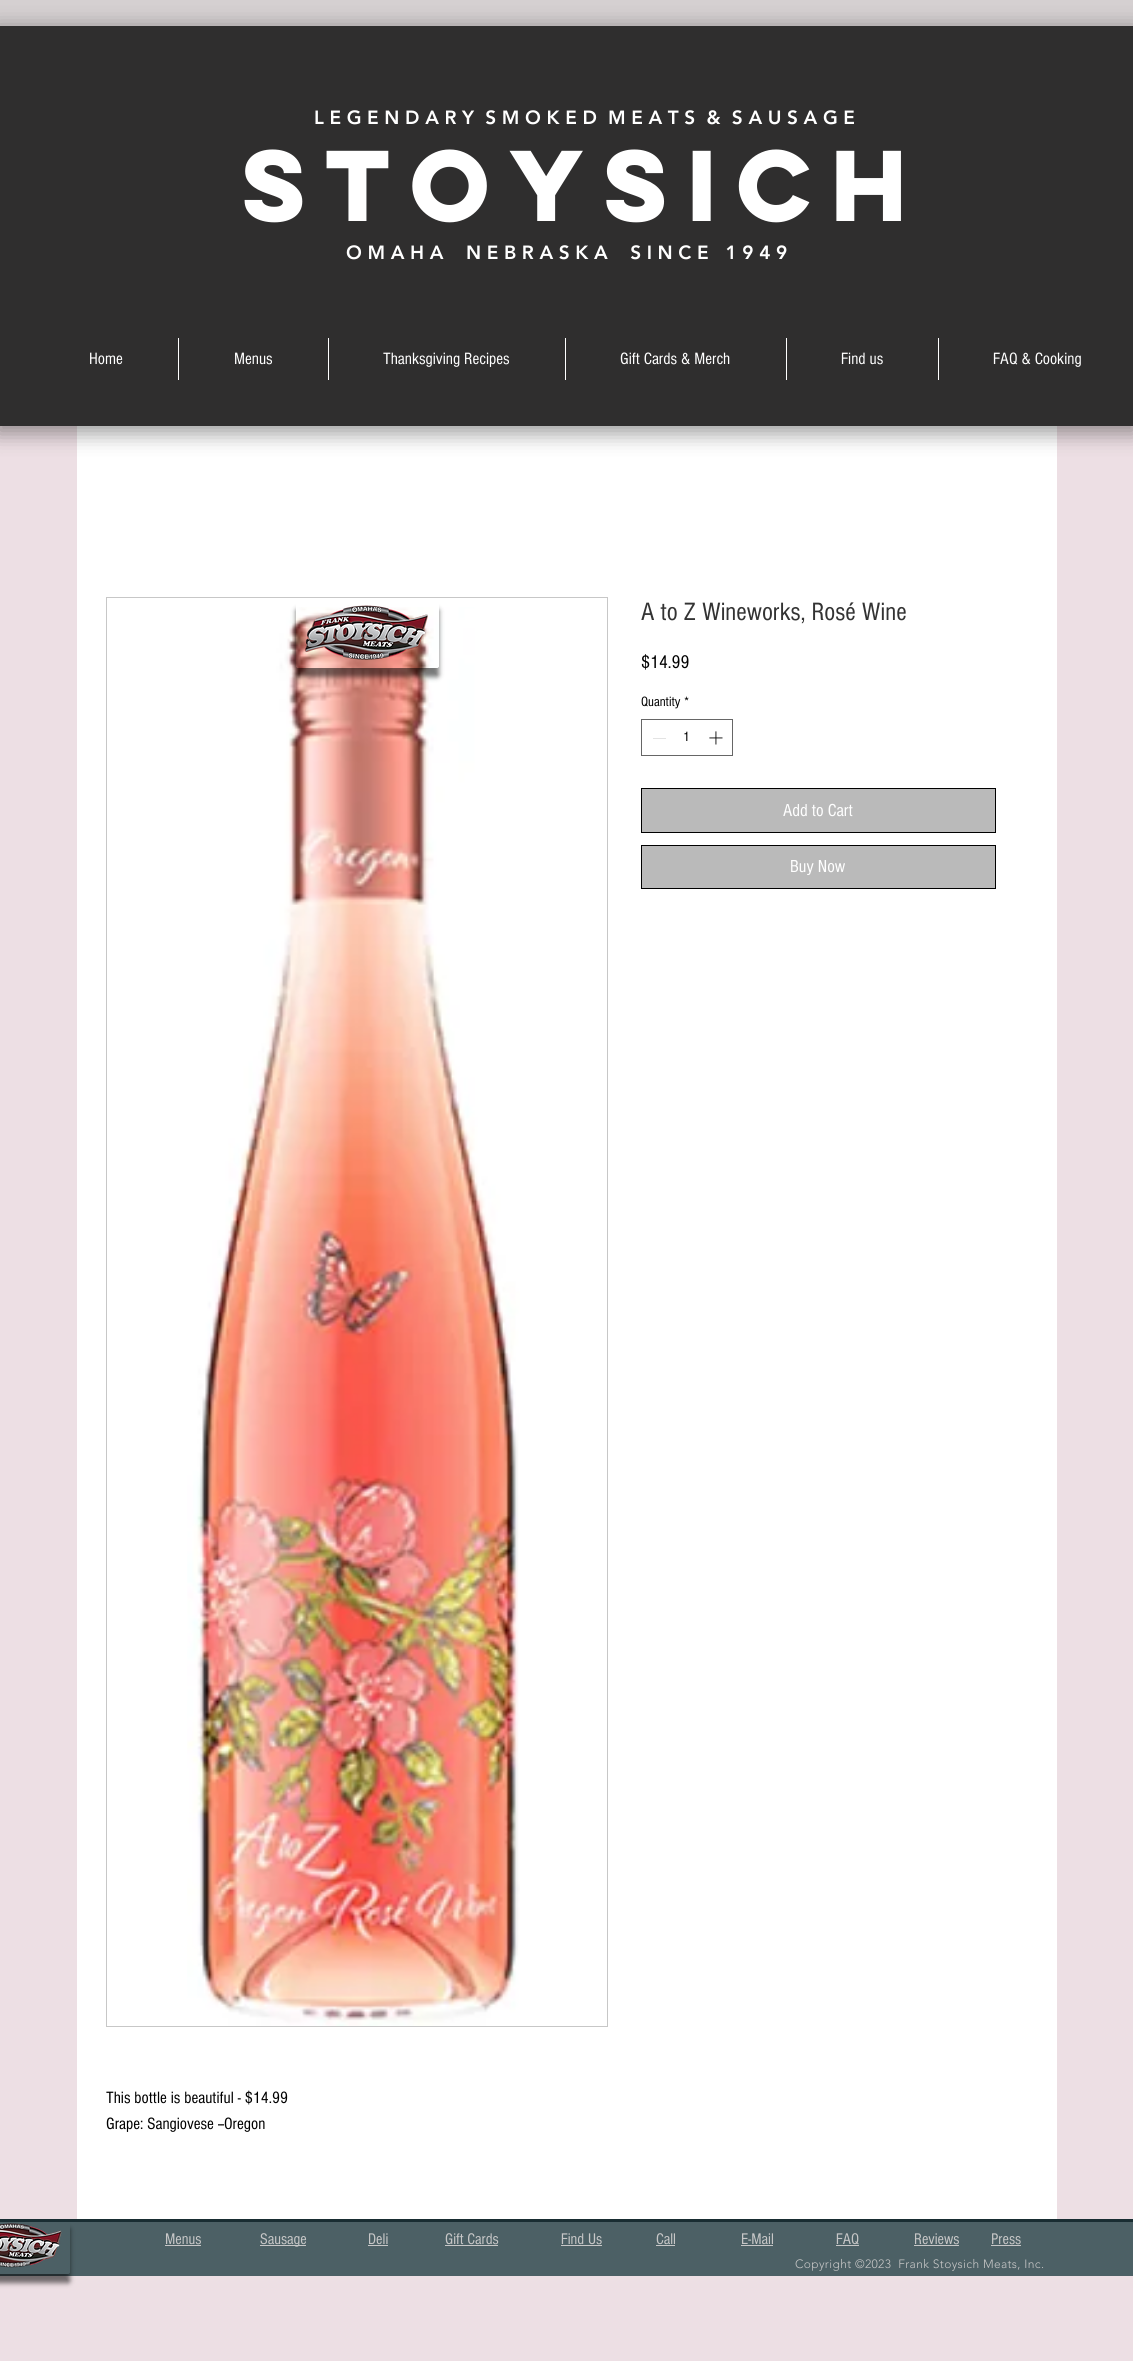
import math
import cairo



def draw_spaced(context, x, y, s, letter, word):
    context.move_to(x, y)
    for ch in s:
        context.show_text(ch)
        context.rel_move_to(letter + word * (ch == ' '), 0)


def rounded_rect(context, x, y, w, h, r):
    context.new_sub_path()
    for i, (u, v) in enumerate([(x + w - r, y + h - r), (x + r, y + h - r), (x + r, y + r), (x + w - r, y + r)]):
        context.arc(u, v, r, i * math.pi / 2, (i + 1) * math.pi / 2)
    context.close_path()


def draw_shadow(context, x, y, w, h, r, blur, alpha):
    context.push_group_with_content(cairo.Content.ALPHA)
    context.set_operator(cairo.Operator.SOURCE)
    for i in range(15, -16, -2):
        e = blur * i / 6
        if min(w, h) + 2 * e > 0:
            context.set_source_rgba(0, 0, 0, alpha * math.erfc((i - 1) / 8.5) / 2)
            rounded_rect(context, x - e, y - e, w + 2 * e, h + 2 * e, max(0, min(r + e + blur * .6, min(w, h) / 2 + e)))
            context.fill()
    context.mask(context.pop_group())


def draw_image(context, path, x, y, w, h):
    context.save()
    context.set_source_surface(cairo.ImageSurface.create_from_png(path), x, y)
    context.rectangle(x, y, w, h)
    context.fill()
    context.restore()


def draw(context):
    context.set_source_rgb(237 / 255, 223 / 255, 228 / 255)
    context.paint()
    context.set_source_rgb(213 / 255, 208 / 255, 209 / 255)
    context.rectangle(0, 0, 1133, 26)
    context.fill()
    context.set_source_rgb(1, 1, 1)
    context.rectangle(77, 426, 980, 1793)
    context.fill()
    context.set_source_rgb(0, 0, 0)
    draw_shadow(context, -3, 28, 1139, 406, 0, 10.5, 0.38)
    context.set_source_rgb(47 / 255, 46 / 255, 46 / 255)
    context.rectangle(0, 26, 1133, 400)
    context.fill()
    context.set_source_rgb(1, 1, 1)
    context.rectangle(178, 338, 1, 42)
    context.fill()
    context.rectangle(328, 338, 1, 42)
    context.fill()
    context.rectangle(565, 338, 1, 42)
    context.fill()
    context.rectangle(786, 338, 1, 42)
    context.fill()
    context.rectangle(938, 338, 1, 42)
    context.fill()
    context.rectangle(106.5, 597.5, 501, 1429)
    context.set_source_rgb(199 / 255, 199 / 255, 199 / 255)
    context.set_line_width(1)
    context.stroke()
    draw_image(context, "images/3.png", 187, 607, 333, 1419)
    context.save()
    context.set_fill_rule(cairo.FillRule.EVEN_ODD)
    context.new_path()
    context.move_to(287, 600)
    context.line_to(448, 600)
    context.line_to(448, 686)
    context.line_to(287, 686)
    context.close_path()
    context.move_to(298, 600)
    context.line_to(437, 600)
    context.curve_to(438, 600, 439, 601, 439, 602)
    context.line_to(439, 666)
    context.curve_to(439, 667, 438, 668, 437, 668)
    context.line_to(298, 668)
    context.curve_to(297, 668, 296, 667, 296, 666)
    context.line_to(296, 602)
    context.curve_to(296, 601, 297, 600, 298, 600)
    context.close_path()
    context.clip()
    context.set_source_rgb(0, 0, 0)
    draw_shadow(context, 296, 609, 143, 68, 2, 2.5, 0.53)
    context.restore()
    draw_image(context, "images/1.png", 304, 605, 124, 55)
    context.rectangle(641.5, 719.5, 91, 36)
    context.set_source_rgb(102 / 255, 102 / 255, 102 / 255)
    context.stroke()
    context.set_source_rgb(227 / 255, 227 / 255, 227 / 255)
    context.rectangle(653, 738, 13, 1)
    context.fill()
    draw_image(context, "images/2.png", 709, 731, 14, 14)
    context.set_source_rgb(186 / 255, 186 / 255, 186 / 255)
    context.rectangle(641.5, 788.5, 354, 44)
    context.fill_preserve()
    context.set_source_rgb(0, 0, 0)
    context.stroke()
    context.set_source_rgb(186 / 255, 186 / 255, 186 / 255)
    context.rectangle(641.5, 845.5, 354, 43)
    context.fill_preserve()
    context.set_source_rgb(0, 0, 0)
    context.stroke()
    context.set_source_rgb(76 / 255, 96 / 255, 101 / 255)
    context.rectangle(0, 2222, 1133, 54)
    context.fill()
    context.set_source_rgb(25 / 255, 45 / 255, 50 / 255)
    context.rectangle(0, 2219, 1133, 3)
    context.fill()
    context.save()
    context.set_fill_rule(cairo.FillRule.EVEN_ODD)
    context.new_path()
    context.move_to(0, 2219)
    context.line_to(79, 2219)
    context.line_to(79, 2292)
    context.line_to(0, 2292)
    context.close_path()
    context.move_to(-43, 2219)
    context.line_to(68, 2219)
    context.curve_to(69, 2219, 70, 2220, 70, 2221)
    context.line_to(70, 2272)
    context.curve_to(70, 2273, 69, 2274, 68, 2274)
    context.line_to(-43, 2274)
    context.curve_to(-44, 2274, -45, 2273, -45, 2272)
    context.line_to(-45, 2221)
    context.curve_to(-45, 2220, -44, 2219, -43, 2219)
    context.close_path()
    context.clip()
    context.set_source_rgb(0, 0, 0)
    draw_shadow(context, -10, 2228, 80, 55, 2, 2.5, 0.53)
    context.restore()
    draw_image(context, "images/4.png", 0, 2223, 62, 45)
    context.set_source_rgb(199 / 255, 199 / 255, 199 / 255)
    context.rectangle(165, 2245, 36, 1)
    context.fill()
    context.rectangle(260, 2245, 46, 1)
    context.fill()
    context.rectangle(368, 2245, 20, 1)
    context.fill()
    context.rectangle(445, 2245, 53, 1)
    context.fill()
    context.rectangle(561, 2245, 41, 1)
    context.fill()
    context.rectangle(656, 2245, 19, 1)
    context.fill()
    context.rectangle(741, 2245, 32, 1)
    context.fill()
    context.rectangle(836, 2245, 23, 1)
    context.fill()
    context.rectangle(914, 2245, 45, 1)
    context.fill()
    context.rectangle(991, 2245, 30, 1)
    context.fill()
    context.select_font_face("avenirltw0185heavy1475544 Black")
    context.set_font_size(19)
    context.set_source_rgb(1, 1, 1)
    context.move_to(314, 124)
    context.show_text("L E G E N D A R Y  S M O K E D  M E A T S  &  S A U S A G E")
    context.select_font_face("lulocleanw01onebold", cairo.FontSlant.NORMAL, cairo.FontWeight.BOLD)
    context.set_font_size(90)
    context.move_to(242, 221)
    context.show_text("Stoysich")
    context.select_font_face("avenirltw0185heavy1475544 Black")
    context.set_font_size(19)
    context.move_to(346, 259)
    context.show_text("O M A H A    N E B R A S K A    S I N C E   1 9 4 9")
    context.select_font_face("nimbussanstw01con")
    context.set_font_size(17)
    context.move_to(89, 364)
    context.show_text("Home")
    context.move_to(234, 364)
    context.show_text("Menus")
    context.move_to(383, 364)
    context.show_text("Thanksgiving Recipes")
    context.move_to(620, 364)
    context.show_text("Gift Cards & Merch")
    context.move_to(841, 364)
    context.show_text("Find us")
    context.move_to(993, 364)
    context.show_text("FAQ & Cooking")
    context.set_font_size(26)
    context.set_source_rgb(51 / 255, 51 / 255, 51 / 255)
    context.move_to(641, 620)
    context.show_text("A to Z Wineworks, Rosé Wine")
    context.set_font_size(19)
    context.set_source_rgb(0, 0, 0)
    context.move_to(641, 668)
    context.show_text("$14.99")
    context.set_font_size(14)
    context.move_to(641, 706)
    context.show_text("Quantity")
    context.move_to(684, 706)
    context.show_text("*")
    context.move_to(683, 741)
    context.show_text("1")
    context.set_font_size(18)
    context.set_source_rgb(1, 1, 1)
    context.move_to(783, 816)
    context.show_text("Add to Cart")
    context.move_to(790, 872)
    context.show_text("Buy Now")
    context.set_font_size(17)
    context.set_source_rgb(0, 0, 0)
    context.move_to(106, 2103)
    context.show_text("This bottle is beautiful - $14.99")
    context.move_to(106, 2129)
    context.show_text("Grape: Sangiovese --Oregon")
    context.set_font_size(16)
    context.set_source_rgb(199 / 255, 199 / 255, 199 / 255)
    context.move_to(165, 2244)
    context.show_text("Menus")
    context.move_to(260, 2244)
    context.show_text("Sausage")
    context.move_to(368, 2244)
    context.show_text("Deli")
    context.move_to(445, 2244)
    context.show_text("Gift Cards")
    context.move_to(561, 2244)
    context.show_text("Find Us")
    context.move_to(656, 2244)
    context.show_text("Call")
    context.move_to(741, 2244)
    context.show_text("E-Mail")
    context.move_to(836, 2244)
    context.show_text("FAQ")
    context.move_to(914, 2244)
    context.show_text("Reviews")
    context.move_to(991, 2244)
    context.show_text("Press")
    context.select_font_face("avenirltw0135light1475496 Light")
    context.set_font_size(12)
    draw_spaced(context, 795, 2268, "Copyright ©2023  Frank Stoysich Meats, Inc.", 0.35, 0)


surface = cairo.ImageSurface(cairo.Format.RGB24, 1133, 2361)
context = cairo.Context(surface)
options = cairo.FontOptions()
options.set_hint_metrics(cairo.HintMetrics.OFF)
options.set_hint_style(cairo.HintStyle.NONE)
context.set_font_options(options)
context.set_miter_limit(4)
draw(context)
surface.write_to_png("out.png")
